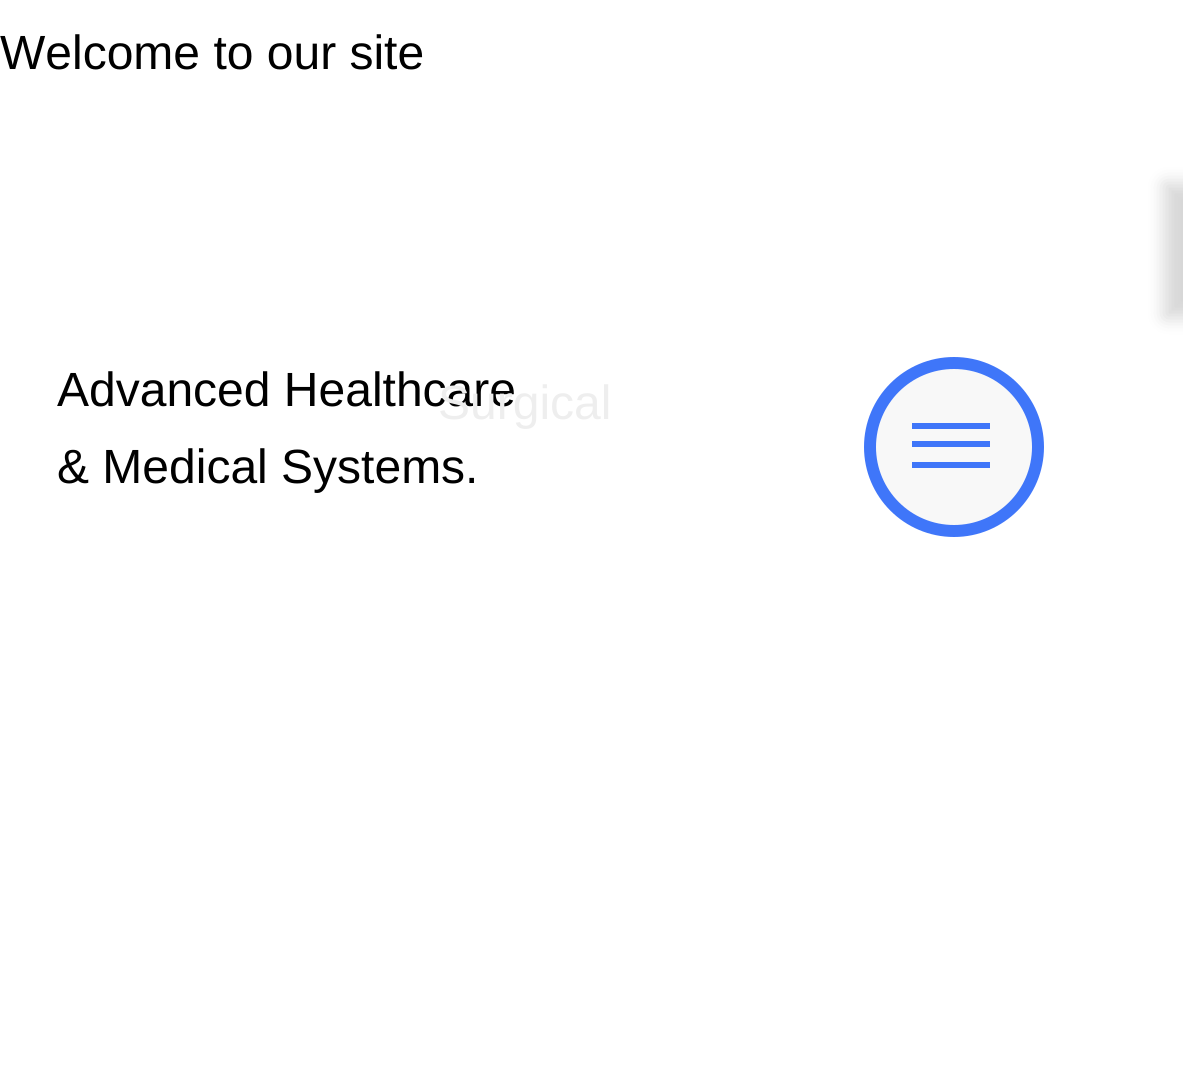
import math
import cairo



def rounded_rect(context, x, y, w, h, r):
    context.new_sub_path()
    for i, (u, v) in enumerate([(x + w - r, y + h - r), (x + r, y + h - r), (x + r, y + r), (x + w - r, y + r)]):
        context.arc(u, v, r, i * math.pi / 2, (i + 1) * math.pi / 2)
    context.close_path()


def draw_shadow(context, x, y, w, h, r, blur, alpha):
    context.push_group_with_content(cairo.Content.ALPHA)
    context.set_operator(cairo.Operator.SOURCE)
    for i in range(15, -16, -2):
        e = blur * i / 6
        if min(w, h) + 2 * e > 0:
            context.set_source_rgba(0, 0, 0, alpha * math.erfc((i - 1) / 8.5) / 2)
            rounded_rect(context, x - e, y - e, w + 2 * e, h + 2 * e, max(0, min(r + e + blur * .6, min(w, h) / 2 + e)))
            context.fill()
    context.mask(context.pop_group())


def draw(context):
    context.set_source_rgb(1, 1, 1)
    context.paint()
    context.set_source_rgb(248 / 255, 248 / 255, 248 / 255)
    context.arc(954, 447, 84, 0, 2 * math.pi)
    context.fill_preserve()
    context.set_source_rgb(63 / 255, 118 / 255, 249 / 255)
    context.set_line_width(12)
    context.stroke()
    context.rectangle(912, 423, 78, 6)
    context.fill()
    context.rectangle(912, 441, 78, 6)
    context.fill()
    context.rectangle(912, 462, 78, 6)
    context.fill()
    context.set_source_rgb(0, 0, 0)
    draw_shadow(context, 1164, 183, 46, 135, 0, 9, 0.16)
    context.select_font_face("Liberation Sans")
    context.set_font_size(48)
    context.set_source_rgb(0, 0, 0)
    context.move_to(0, 69)
    context.show_text("Welcome to our site")
    context.move_to(57, 406)
    context.show_text("Advanced Healthcare")
    context.move_to(57, 483)
    context.show_text("& Medical Systems.")
    context.set_source_rgb(238 / 255, 238 / 255, 238 / 255)
    context.move_to(438, 419)
    context.show_text("Surgical")


surface = cairo.ImageSurface(cairo.Format.RGB24, 1183, 1078)
context = cairo.Context(surface)
options = cairo.FontOptions()
options.set_hint_metrics(cairo.HintMetrics.OFF)
options.set_hint_style(cairo.HintStyle.NONE)
context.set_font_options(options)
context.set_miter_limit(4)
draw(context)
surface.write_to_png("out.png")
